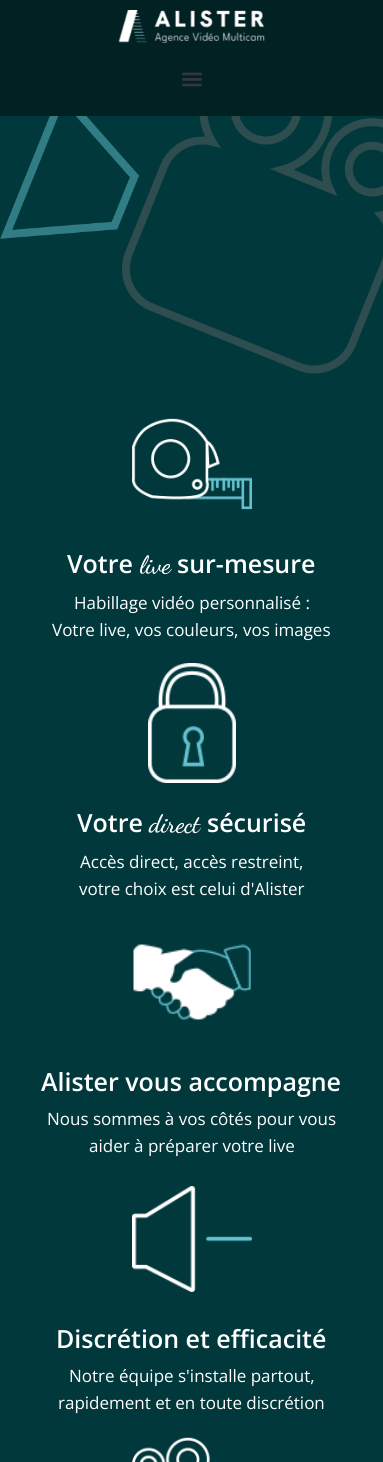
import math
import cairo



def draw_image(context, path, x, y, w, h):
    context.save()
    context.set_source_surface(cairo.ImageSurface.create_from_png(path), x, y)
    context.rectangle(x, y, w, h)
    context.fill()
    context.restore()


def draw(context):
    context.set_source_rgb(1 / 255, 56 / 255, 60 / 255)
    context.paint()
    context.set_source_rgb(1 / 255, 33 / 255, 35 / 255)
    context.rectangle(0, 0, 383, 116)
    context.fill()
    draw_image(context, "images/1.png", 118, 10, 147, 33)
    draw_image(context, "images/2.png", 182, 72, 20, 15)
    draw_image(context, "images/3.png", 0, 116, 383, 258)
    draw_image(context, "images/4.png", 132, 418, 120, 92)
    draw_image(context, "images/5.png", 148, 663, 88, 120)
    draw_image(context, "images/6.png", 133, 944, 118, 76)
    draw_image(context, "images/7.png", 132, 1186, 120, 106)
    draw_image(context, "images/8.png", 132, 1437, 78, 25)
    context.select_font_face("Open Sans SemiBold")
    context.set_font_size(25)
    context.set_source_rgb(1, 1, 1)
    context.move_to(67, 573)
    context.show_text("Votre")
    context.select_font_face("Dancing Script SemiBold")
    context.move_to(140, 573)
    context.show_text("live")
    context.select_font_face("Open Sans SemiBold")
    context.move_to(177, 573)
    context.show_text("sur-mesure")
    context.select_font_face("Open Sans")
    context.set_font_size(17)
    context.move_to(74, 609)
    context.show_text("Habillage vidéo personnalisé :")
    context.move_to(52, 636)
    context.show_text("Votre live, vos couleurs, vos images")
    context.select_font_face("Open Sans SemiBold")
    context.set_font_size(25)
    context.move_to(77, 832)
    context.show_text("Votre")
    context.select_font_face("Dancing Script SemiBold")
    context.move_to(149, 832)
    context.show_text("direct")
    context.select_font_face("Open Sans SemiBold")
    context.move_to(207, 832)
    context.show_text("sécurisé")
    context.select_font_face("Open Sans")
    context.set_font_size(17)
    context.move_to(80, 868)
    context.show_text("Accès direct, accès restreint,")
    context.move_to(79, 895)
    context.show_text("votre choix est celui d'Alister")
    context.select_font_face("Open Sans SemiBold")
    context.set_font_size(25)
    context.move_to(41, 1091)
    context.show_text("Alister vous accompagne")
    context.select_font_face("Open Sans")
    context.set_font_size(17)
    context.move_to(47, 1125)
    context.show_text("Nous sommes à vos côtés pour vous")
    context.move_to(89, 1152)
    context.show_text("aider à préparer votre live")
    context.select_font_face("Open Sans SemiBold")
    context.set_font_size(25)
    context.move_to(56, 1348)
    context.show_text("Discrétion et efficacité")
    context.select_font_face("Open Sans")
    context.set_font_size(17)
    context.move_to(69, 1382)
    context.show_text("Notre équipe s'installe partout,")
    context.move_to(58, 1409)
    context.show_text("rapidement et en toute discrétion")


surface = cairo.ImageSurface(cairo.Format.RGB24, 383, 1462)
context = cairo.Context(surface)
options = cairo.FontOptions()
options.set_hint_metrics(cairo.HintMetrics.OFF)
options.set_hint_style(cairo.HintStyle.NONE)
context.set_font_options(options)
context.set_miter_limit(4)
draw(context)
surface.write_to_png("out.png")
